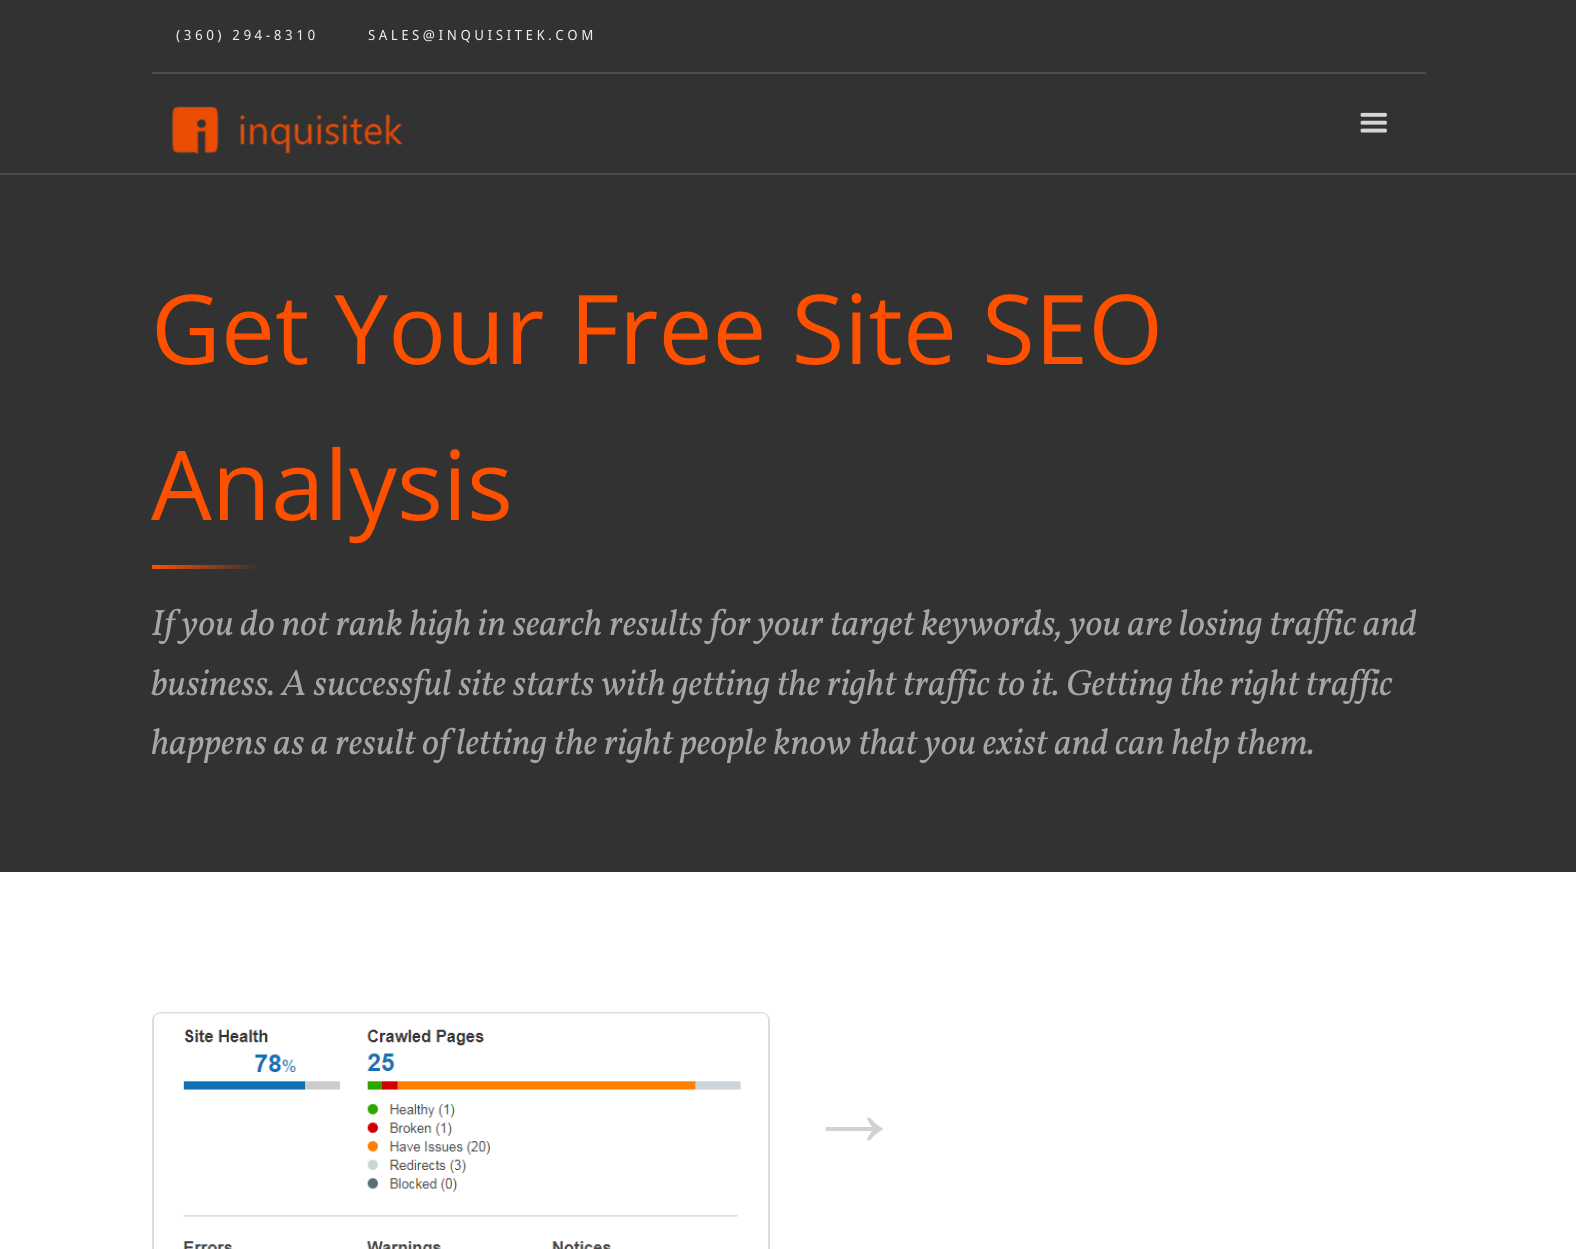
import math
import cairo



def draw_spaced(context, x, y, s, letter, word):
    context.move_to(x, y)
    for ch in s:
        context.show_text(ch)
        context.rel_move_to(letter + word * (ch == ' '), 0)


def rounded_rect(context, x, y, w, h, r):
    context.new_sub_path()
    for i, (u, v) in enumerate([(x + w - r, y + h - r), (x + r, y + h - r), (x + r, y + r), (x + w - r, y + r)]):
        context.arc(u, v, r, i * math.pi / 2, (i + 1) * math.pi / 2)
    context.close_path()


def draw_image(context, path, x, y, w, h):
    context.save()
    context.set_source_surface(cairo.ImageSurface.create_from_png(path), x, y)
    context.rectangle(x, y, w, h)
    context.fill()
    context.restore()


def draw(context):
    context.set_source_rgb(1, 1, 1)
    context.paint()
    context.set_source_rgb(77 / 255, 77 / 255, 77 / 255)
    context.new_path()
    context.move_to(0, 173)
    context.line_to(0, 175)
    context.line_to(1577, 175)
    context.line_to(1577, 2)
    context.line_to(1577, 173)
    context.close_path()
    context.fill()
    context.set_source_rgb(50 / 255, 50 / 255, 50 / 255)
    context.rectangle(0, 0, 1576, 173)
    context.fill()
    context.set_source_rgb(77 / 255, 77 / 255, 77 / 255)
    context.rectangle(152, 72, 1274, 2)
    context.fill()
    draw_image(context, "images/1.png", 172, 106, 231, 49)
    draw_image(context, "images/2.png", 1360, 112, 27, 21)
    context.set_source_rgb(50 / 255, 50 / 255, 50 / 255)
    context.rectangle(0, 175, 1576, 697)
    context.fill()
    gradient = cairo.LinearGradient(178, 540, 232, 594)
    gradient.add_color_stop_rgba(0, 1, 80 / 255, 0, 1)
    gradient.add_color_stop_rgba(1, 51 / 255, 51 / 255, 51 / 255, 1)
    context.set_source(gradient)
    context.rectangle(152, 565, 105, 4)
    context.fill()
    rounded_rect(context, 153, 1013, 616, 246, 8)
    context.set_source_rgb(221 / 255, 221 / 255, 221 / 255)
    context.stroke()
    draw_image(context, "images/3.png", 154, 1013, 614, 236)
    context.select_font_face("Droid Sans")
    context.set_font_size(14)
    context.set_source_rgb(237 / 255, 237 / 255, 237 / 255)
    draw_spaced(context, 176, 40, "(360) 294-8310", 3.5, 0)
    draw_spaced(context, 368, 40, "SALES@INQUISITEK.COM", 3.5, 0)
    context.select_font_face("Open Sans")
    context.set_font_size(96.25)
    context.set_source_rgb(1, 80 / 255, 0)
    context.move_to(151, 364)
    context.show_text("Get Your Free Site SEO")
    context.move_to(151, 520)
    context.show_text("Analysis")
    context.select_font_face("Vollkorn", cairo.FontSlant.ITALIC)
    context.set_font_size(36.75)
    context.set_source_rgb(166 / 255, 166 / 255, 166 / 255)
    context.move_to(151, 635)
    context.show_text("If you do not rank high in search results for your target keywords, you are losing traffic and")
    context.move_to(151, 695)
    context.show_text("business. A successful site starts with getting the right traffic to it. Getting the right traffic")
    context.move_to(151, 754)
    context.show_text("happens as a result of letting the right people know that you exist and can help them.")
    context.select_font_face("Liberation Sans")
    context.set_font_size(96.25)
    context.set_source_rgb(209 / 255, 209 / 255, 209 / 255)
    context.move_to(806, 1145)
    context.show_text("→")


surface = cairo.ImageSurface(cairo.Format.RGB24, 1576, 1249)
context = cairo.Context(surface)
options = cairo.FontOptions()
options.set_hint_metrics(cairo.HintMetrics.OFF)
options.set_hint_style(cairo.HintStyle.NONE)
context.set_font_options(options)
context.set_miter_limit(4)
draw(context)
surface.write_to_png("out.png")
